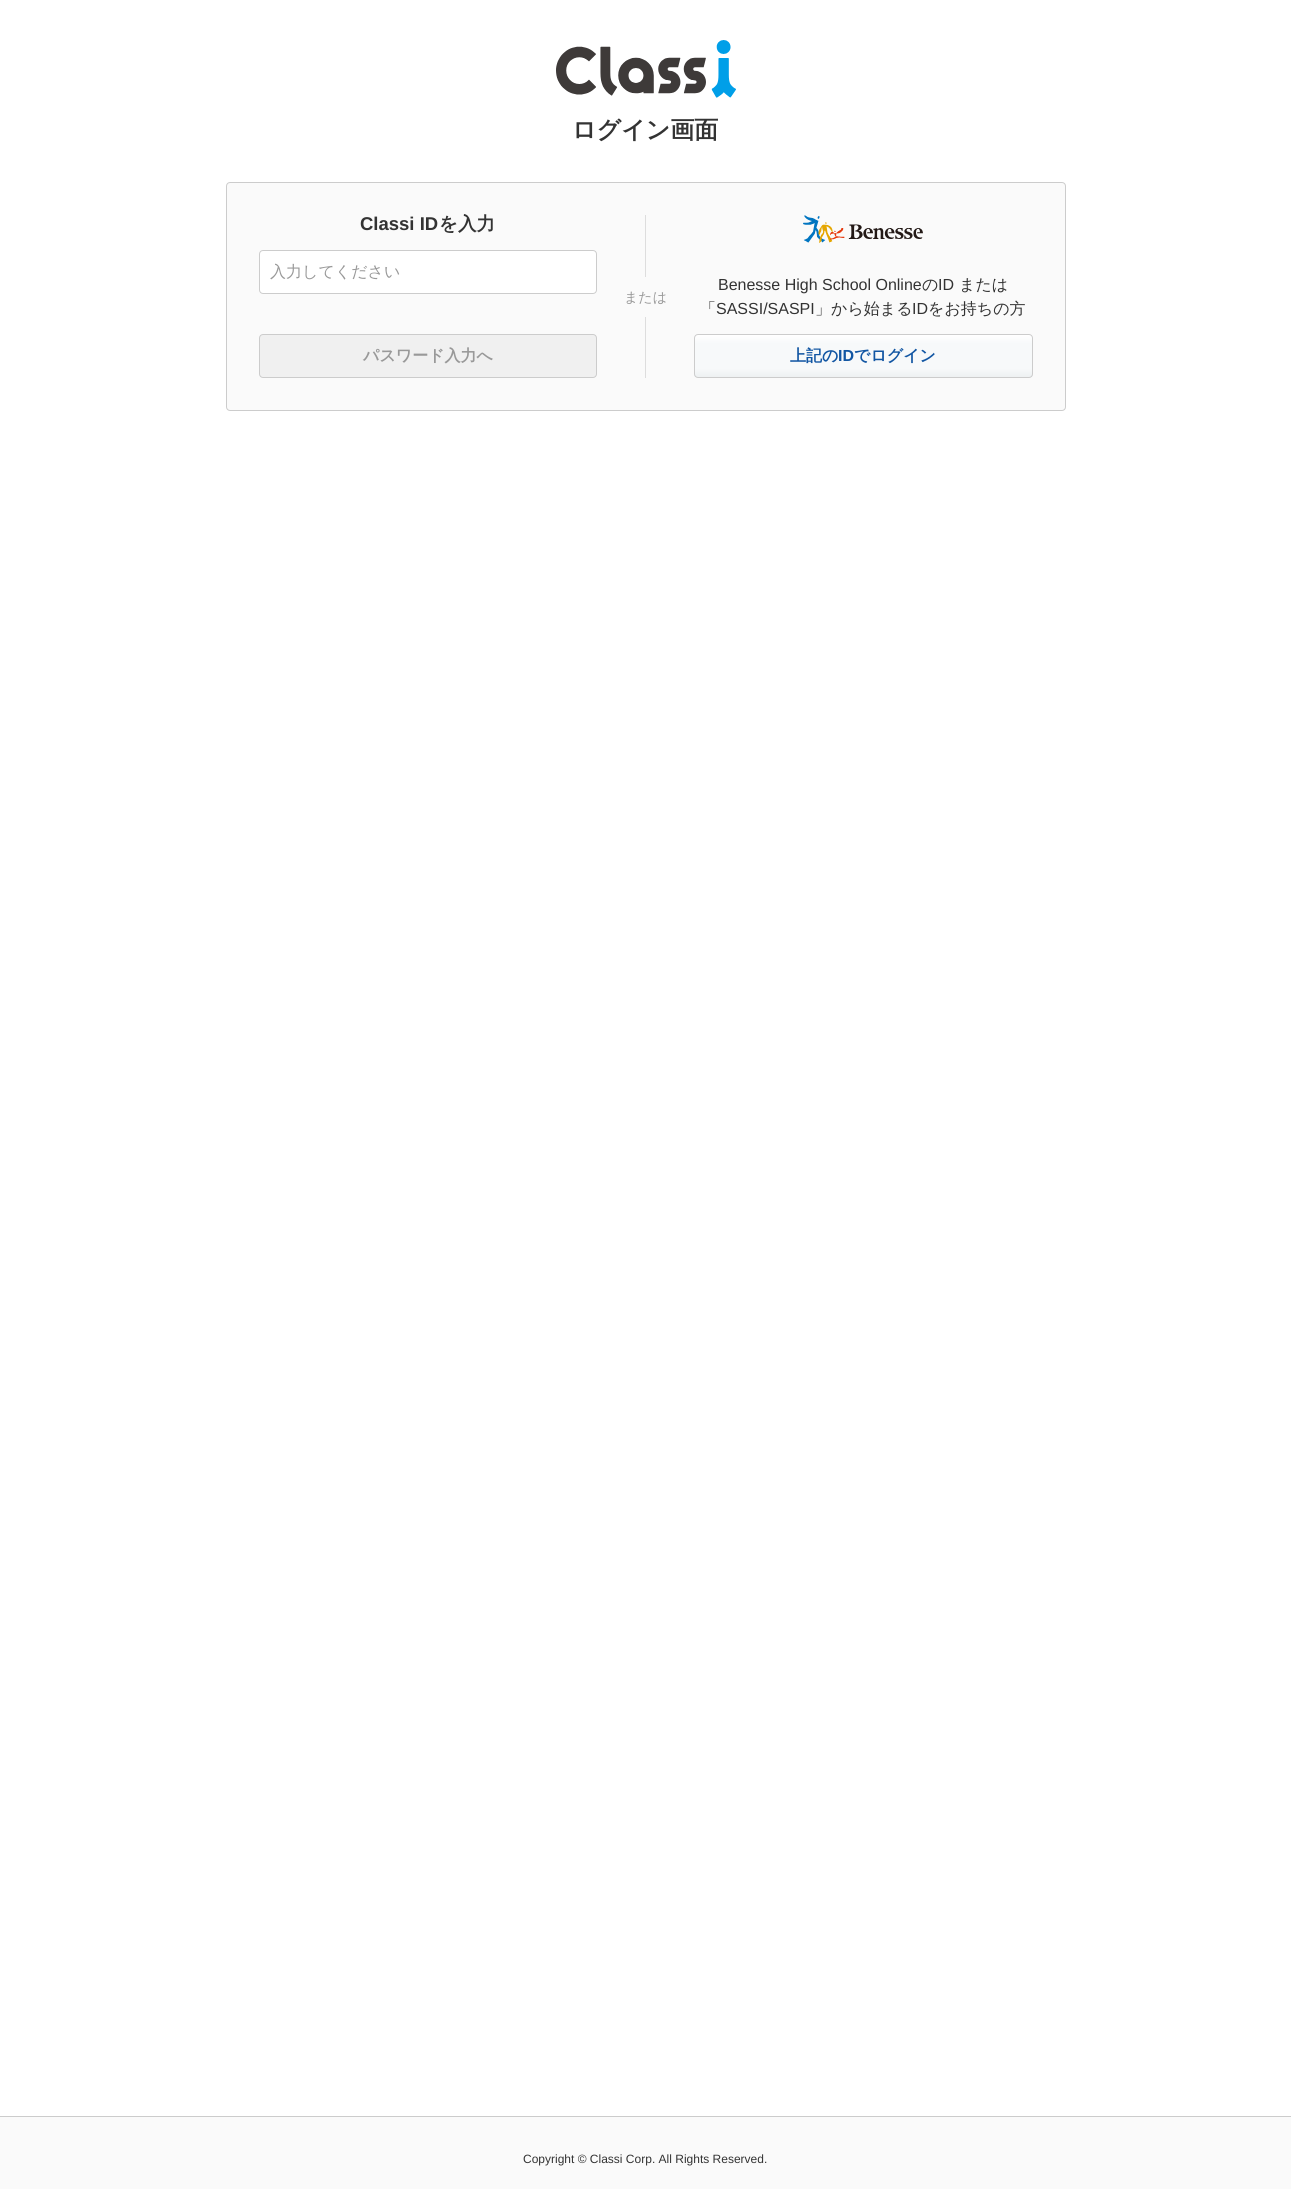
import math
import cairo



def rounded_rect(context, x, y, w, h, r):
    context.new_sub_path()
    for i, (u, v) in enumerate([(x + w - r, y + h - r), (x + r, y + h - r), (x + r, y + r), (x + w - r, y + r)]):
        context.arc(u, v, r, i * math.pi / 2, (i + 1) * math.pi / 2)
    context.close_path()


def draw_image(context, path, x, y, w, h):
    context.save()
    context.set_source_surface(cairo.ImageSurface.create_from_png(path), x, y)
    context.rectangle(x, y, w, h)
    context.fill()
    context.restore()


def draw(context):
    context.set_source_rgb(1, 1, 1)
    context.paint()
    draw_image(context, "images/1.png", 556, 40, 180, 58)
    context.set_source_rgb(250 / 255, 250 / 255, 250 / 255)
    rounded_rect(context, 226.5, 182.5, 839, 228, 3.5)
    context.fill_preserve()
    context.set_source_rgb(204 / 255, 204 / 255, 204 / 255)
    context.set_line_width(1)
    context.stroke()
    context.set_source_rgb(1, 1, 1)
    rounded_rect(context, 259.5, 250.5, 337, 43, 3.5)
    context.fill_preserve()
    context.set_source_rgb(204 / 255, 204 / 255, 204 / 255)
    context.stroke()
    context.set_source_rgb(240 / 255, 240 / 255, 240 / 255)
    rounded_rect(context, 259.5, 334.5, 337, 43, 3.5)
    context.fill_preserve()
    context.set_source_rgb(204 / 255, 204 / 255, 204 / 255)
    context.stroke()
    context.set_source_rgb(221 / 255, 221 / 255, 221 / 255)
    context.rectangle(645, 215, 1, 163)
    context.fill()
    context.set_source_rgb(250 / 255, 250 / 255, 250 / 255)
    context.rectangle(645, 277, 1, 40)
    context.fill()
    draw_image(context, "images/2.png", 803, 215, 120, 28)
    context.save()
    rounded_rect(context, 694, 334, 339, 44, 4)
    context.clip()
    gradient = cairo.LinearGradient(864, 335, 864, 377)
    gradient.add_color_stop_rgba(0, 1, 1, 1, 1)
    gradient.add_color_stop_rgba(0.2, 247 / 255, 249 / 255, 250 / 255, 1)
    gradient.add_color_stop_rgba(0.8, 247 / 255, 249 / 255, 250 / 255, 1)
    gradient.add_color_stop_rgba(1, 237 / 255, 240 / 255, 242 / 255, 1)
    context.set_source(gradient)
    context.rectangle(694, 335, 339, 42)
    context.fill()
    context.restore()
    rounded_rect(context, 694.5, 334.5, 338, 43, 3.5)
    context.set_source_rgb(204 / 255, 204 / 255, 204 / 255)
    context.stroke()
    context.set_source_rgb(250 / 255, 250 / 255, 250 / 255)
    context.rectangle(0, 2117, 1291, 72)
    context.fill()
    context.set_source_rgb(204 / 255, 204 / 255, 204 / 255)
    context.rectangle(0, 2116, 1291, 1)
    context.fill()
    context.select_font_face("WenQuanYi Zen Hei", cairo.FontSlant.NORMAL, cairo.FontWeight.BOLD)
    context.set_font_size(24)
    context.set_source_rgb(51 / 255, 51 / 255, 51 / 255)
    context.move_to(572, 138)
    context.show_text("ログイン画面")
    context.select_font_face("Liberation Sans", cairo.FontSlant.NORMAL, cairo.FontWeight.BOLD)
    context.set_font_size(18.5)
    context.move_to(360, 230)
    context.show_text("Classi ID")
    context.select_font_face("WenQuanYi Zen Hei", cairo.FontSlant.NORMAL, cairo.FontWeight.BOLD)
    context.move_to(439, 230)
    context.show_text("を入力")
    context.select_font_face("WenQuanYi Zen Hei Medium")
    context.set_font_size(16)
    context.set_source_rgb(153 / 255, 153 / 255, 153 / 255)
    context.move_to(270, 277)
    context.show_text("入力してください")
    context.select_font_face("WenQuanYi Zen Hei", cairo.FontSlant.NORMAL, cairo.FontWeight.BOLD)
    context.move_to(363, 361)
    context.show_text("パスワード入力へ")
    context.select_font_face("WenQuanYi Zen Hei Medium")
    context.set_font_size(14)
    context.move_to(624, 302)
    context.show_text("または")
    context.select_font_face("Liberation Sans")
    context.set_font_size(16)
    context.set_source_rgb(51 / 255, 51 / 255, 51 / 255)
    context.move_to(718, 290)
    context.show_text("Benesse High School Online")
    context.select_font_face("WenQuanYi Zen Hei Medium")
    context.move_to(922, 290)
    context.show_text("の")
    context.select_font_face("Liberation Sans")
    context.move_to(938, 290)
    context.show_text("ID")
    context.select_font_face("WenQuanYi Zen Hei Medium")
    context.move_to(959, 290)
    context.show_text("または")
    context.move_to(700, 314)
    context.show_text("「")
    context.select_font_face("Liberation Sans")
    context.move_to(716, 314)
    context.show_text("SASSI/SASPI")
    context.select_font_face("WenQuanYi Zen Hei Medium")
    context.move_to(815, 314)
    context.show_text("」から始まる")
    context.select_font_face("Liberation Sans")
    context.move_to(912, 314)
    context.show_text("ID")
    context.select_font_face("WenQuanYi Zen Hei Medium")
    context.move_to(928, 314)
    context.show_text("をお持ちの方")
    context.select_font_face("WenQuanYi Zen Hei", cairo.FontSlant.NORMAL, cairo.FontWeight.BOLD)
    context.set_source_rgb(18 / 255, 86 / 255, 163 / 255)
    context.move_to(790, 361)
    context.show_text("上記の")
    context.select_font_face("Liberation Sans", cairo.FontSlant.NORMAL, cairo.FontWeight.BOLD)
    context.move_to(838, 361)
    context.show_text("ID")
    context.select_font_face("WenQuanYi Zen Hei", cairo.FontSlant.NORMAL, cairo.FontWeight.BOLD)
    context.move_to(854, 361)
    context.show_text("でログイン")
    context.select_font_face("Liberation Sans")
    context.set_font_size(12)
    context.set_source_rgb(51 / 255, 51 / 255, 51 / 255)
    context.move_to(523, 2163)
    context.show_text("Copyright © Classi Corp. All Rights Reserved.")


surface = cairo.ImageSurface(cairo.Format.RGB24, 1291, 2189)
context = cairo.Context(surface)
options = cairo.FontOptions()
options.set_hint_metrics(cairo.HintMetrics.OFF)
options.set_hint_style(cairo.HintStyle.NONE)
context.set_font_options(options)
context.set_miter_limit(4)
draw(context)
surface.write_to_png("out.png")
